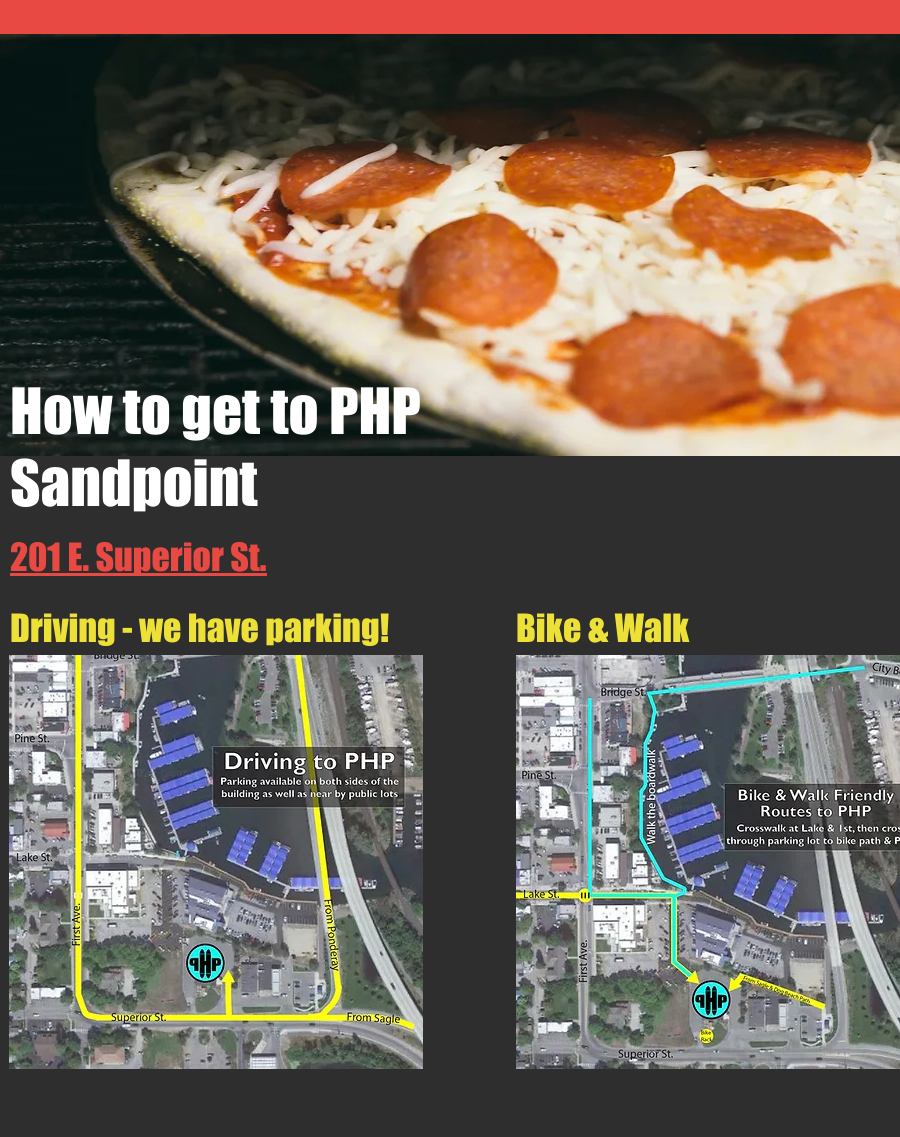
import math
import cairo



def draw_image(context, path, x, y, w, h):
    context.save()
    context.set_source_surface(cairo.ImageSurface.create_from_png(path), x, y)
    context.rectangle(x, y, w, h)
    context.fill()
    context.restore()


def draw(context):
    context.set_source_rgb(47 / 255, 46 / 255, 46 / 255)
    context.paint()
    context.set_source_rgb(232 / 255, 74 / 255, 67 / 255)
    context.rectangle(0, 0, 900, 34)
    context.fill()
    draw_image(context, "images/1.png", 0, 34, 900, 422)
    context.rectangle(10, 573, 257, 3)
    context.fill()
    draw_image(context, "images/2.png", 9, 655, 414, 414)
    draw_image(context, "images/3.png", 516, 655, 384, 414)
    context.select_font_face("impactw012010")
    context.set_font_size(59)
    context.set_source_rgb(1, 1, 1)
    context.move_to(10, 434)
    context.show_text("How to get to PHP")
    context.move_to(10, 506)
    context.show_text("Sandpoint")
    context.set_font_size(36)
    context.set_source_rgb(232 / 255, 74 / 255, 67 / 255)
    context.move_to(10, 571)
    context.show_text("201 E. Superior St.")
    context.set_source_rgb(237 / 255, 225 / 255, 56 / 255)
    context.move_to(10, 642)
    context.show_text("Driving - we have parking!")
    context.move_to(516, 642)
    context.show_text("Bike & Walk")


surface = cairo.ImageSurface(cairo.Format.RGB24, 900, 1137)
context = cairo.Context(surface)
options = cairo.FontOptions()
options.set_hint_metrics(cairo.HintMetrics.OFF)
options.set_hint_style(cairo.HintStyle.NONE)
context.set_font_options(options)
context.set_miter_limit(4)
draw(context)
surface.write_to_png("out.png")
